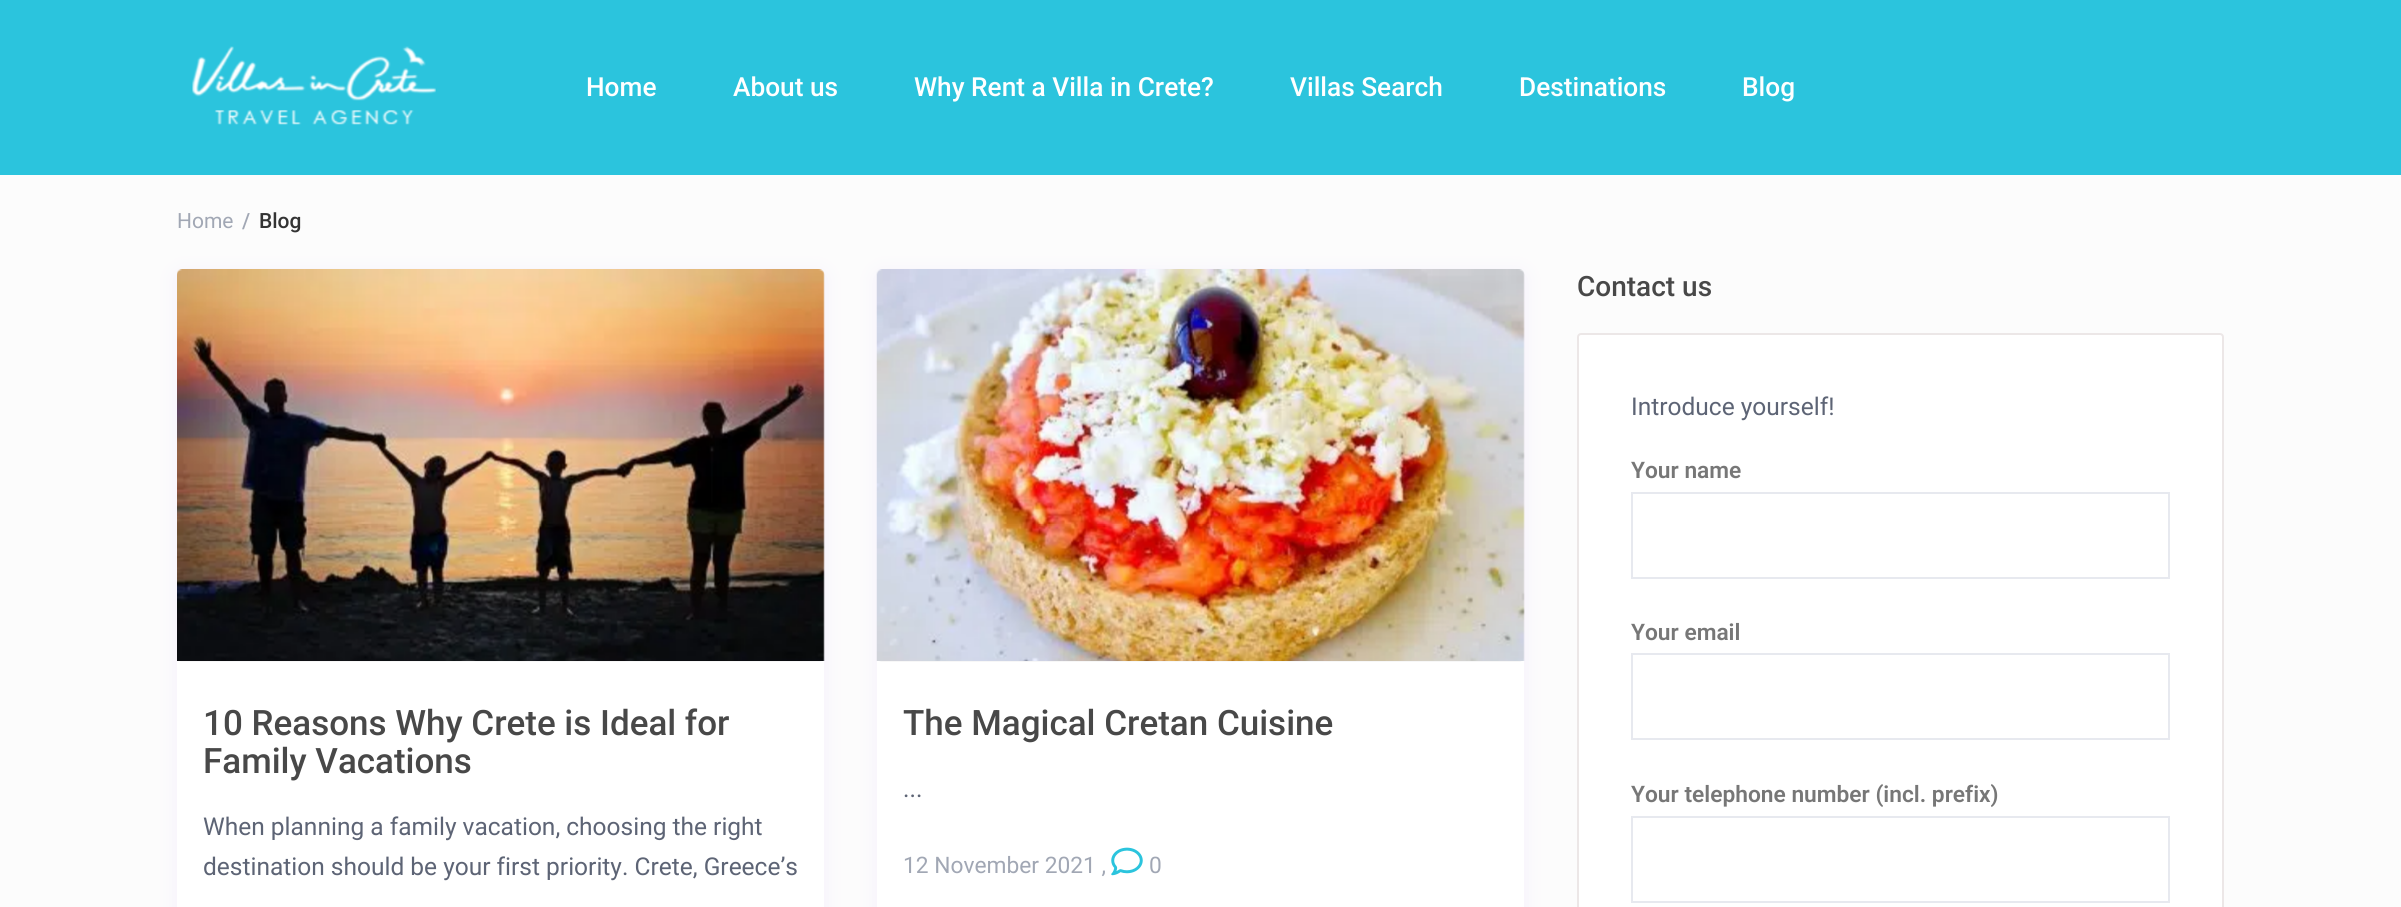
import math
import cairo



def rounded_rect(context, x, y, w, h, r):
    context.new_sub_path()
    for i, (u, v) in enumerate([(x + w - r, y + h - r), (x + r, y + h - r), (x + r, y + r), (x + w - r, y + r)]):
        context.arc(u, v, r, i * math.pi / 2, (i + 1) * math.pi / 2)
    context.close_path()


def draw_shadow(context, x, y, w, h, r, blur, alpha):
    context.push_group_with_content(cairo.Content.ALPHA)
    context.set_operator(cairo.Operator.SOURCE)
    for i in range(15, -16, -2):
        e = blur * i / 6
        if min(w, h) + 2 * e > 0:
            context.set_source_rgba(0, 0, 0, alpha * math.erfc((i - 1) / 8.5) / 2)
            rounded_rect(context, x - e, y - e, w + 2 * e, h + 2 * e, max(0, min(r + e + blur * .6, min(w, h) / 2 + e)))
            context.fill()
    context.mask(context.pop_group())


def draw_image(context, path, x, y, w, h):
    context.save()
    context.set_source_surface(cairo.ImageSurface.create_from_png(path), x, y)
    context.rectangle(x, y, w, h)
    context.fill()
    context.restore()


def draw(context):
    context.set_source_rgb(252 / 255, 252 / 255, 252 / 255)
    context.paint()
    context.set_source_rgb(43 / 255, 196 / 255, 221 / 255)
    context.rectangle(0, 0, 2401, 175)
    context.fill()
    draw_image(context, "images/1.png", 192, 46, 244, 79)
    context.set_source_rgb(181 / 255, 127 / 255, 250 / 255)
    draw_shadow(context, 177, 273, 647, 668, 5, 9.5, 0.1)
    context.set_source_rgb(1, 1, 1)
    rounded_rect(context, 177, 270, 647, 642, 5)
    context.fill()
    context.set_source_rgb(247 / 255, 247 / 255, 247 / 255)
    rounded_rect(context, 177, 270, 647, 392, 5)
    context.fill()
    draw_image(context, "images/2.png", 177, 269, 648, 392)
    context.set_source_rgb(181 / 255, 127 / 255, 250 / 255)
    draw_shadow(context, 877, 273, 647, 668, 5, 9.5, 0.1)
    context.set_source_rgb(1, 1, 1)
    rounded_rect(context, 877, 270, 647, 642, 5)
    context.fill()
    context.set_source_rgb(247 / 255, 247 / 255, 247 / 255)
    rounded_rect(context, 877, 270, 647, 392, 5)
    context.fill()
    draw_image(context, "images/3.png", 876, 269, 649, 392)
    draw_image(context, "images/4.png", 1111, 847, 32, 29)
    context.set_source_rgb(1, 1, 1)
    rounded_rect(context, 1578, 334, 645, 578, 3)
    context.fill_preserve()
    context.set_source_rgb(236 / 255, 231 / 255, 231 / 255)
    context.stroke()
    context.rectangle(1632, 493, 537, 85)
    context.set_source_rgb(231 / 255, 233 / 255, 239 / 255)
    context.stroke()
    context.rectangle(1632, 654, 537, 85)
    context.stroke()
    context.rectangle(1632, 817, 537, 85)
    context.stroke()
    context.select_font_face("Roboto Medium")
    context.set_font_size(26.25)
    context.set_source_rgb(1, 1, 1)
    context.move_to(586, 96)
    context.show_text("Home")
    context.move_to(733, 96)
    context.show_text("About us")
    context.move_to(914, 96)
    context.show_text("Why Rent a Villa in Crete?")
    context.move_to(1290, 96)
    context.show_text("Villas Search")
    context.move_to(1519, 96)
    context.show_text("Destinations")
    context.move_to(1742, 96)
    context.show_text("Blog")
    context.select_font_face("Roboto")
    context.set_font_size(21)
    context.set_source_rgb(161 / 255, 167 / 255, 180 / 255)
    context.move_to(177, 228)
    context.show_text("Home")
    context.select_font_face("Roboto Medium")
    context.move_to(242, 228)
    context.show_text("/")
    context.set_source_rgb(51 / 255, 51 / 255, 51 / 255)
    context.move_to(259, 228)
    context.show_text("Blog")
    context.set_font_size(35)
    context.set_source_rgb(72 / 255, 72 / 255, 72 / 255)
    context.move_to(203, 735)
    context.show_text("10 Reasons Why Crete is Ideal for")
    context.move_to(203, 773)
    context.show_text("Family Vacations")
    context.select_font_face("Roboto")
    context.set_font_size(24.5)
    context.set_source_rgb(93 / 255, 100 / 255, 117 / 255)
    context.move_to(203, 835)
    context.show_text("When planning a family vacation, choosing the right")
    context.move_to(203, 875)
    context.show_text("destination should be your first priority. Crete, Greece’s")
    context.select_font_face("Roboto Medium")
    context.set_font_size(35)
    context.set_source_rgb(72 / 255, 72 / 255, 72 / 255)
    context.move_to(903, 735)
    context.show_text("The Magical Cretan Cuisine")
    context.select_font_face("Roboto")
    context.set_font_size(24.5)
    context.set_source_rgb(93 / 255, 100 / 255, 117 / 255)
    context.move_to(903, 797)
    context.show_text("...")
    context.set_font_size(22.75)
    context.set_source_rgb(161 / 255, 167 / 255, 180 / 255)
    context.move_to(903, 873)
    context.show_text("12 November 2021 ,")
    context.move_to(1149, 873)
    context.show_text("0")
    context.select_font_face("Roboto Medium")
    context.set_font_size(28)
    context.set_source_rgb(72 / 255, 72 / 255, 72 / 255)
    context.move_to(1577, 296)
    context.show_text("Contact us")
    context.select_font_face("Roboto")
    context.set_font_size(24.5)
    context.set_source_rgb(93 / 255, 100 / 255, 117 / 255)
    context.move_to(1631, 415)
    context.show_text("Introduce yourself!")
    context.select_font_face("Roboto SemiBold")
    context.set_font_size(22.75)
    context.set_source_rgb(119 / 255, 119 / 255, 119 / 255)
    context.move_to(1631, 478)
    context.show_text("Your name")
    context.move_to(1631, 640)
    context.show_text("Your email")
    context.move_to(1631, 802)
    context.show_text("Your telephone number (incl. prefix)")


surface = cairo.ImageSurface(cairo.Format.RGB24, 2401, 907)
context = cairo.Context(surface)
options = cairo.FontOptions()
options.set_hint_metrics(cairo.HintMetrics.OFF)
options.set_hint_style(cairo.HintStyle.NONE)
context.set_font_options(options)
context.set_miter_limit(4)
draw(context)
surface.write_to_png("out.png")
